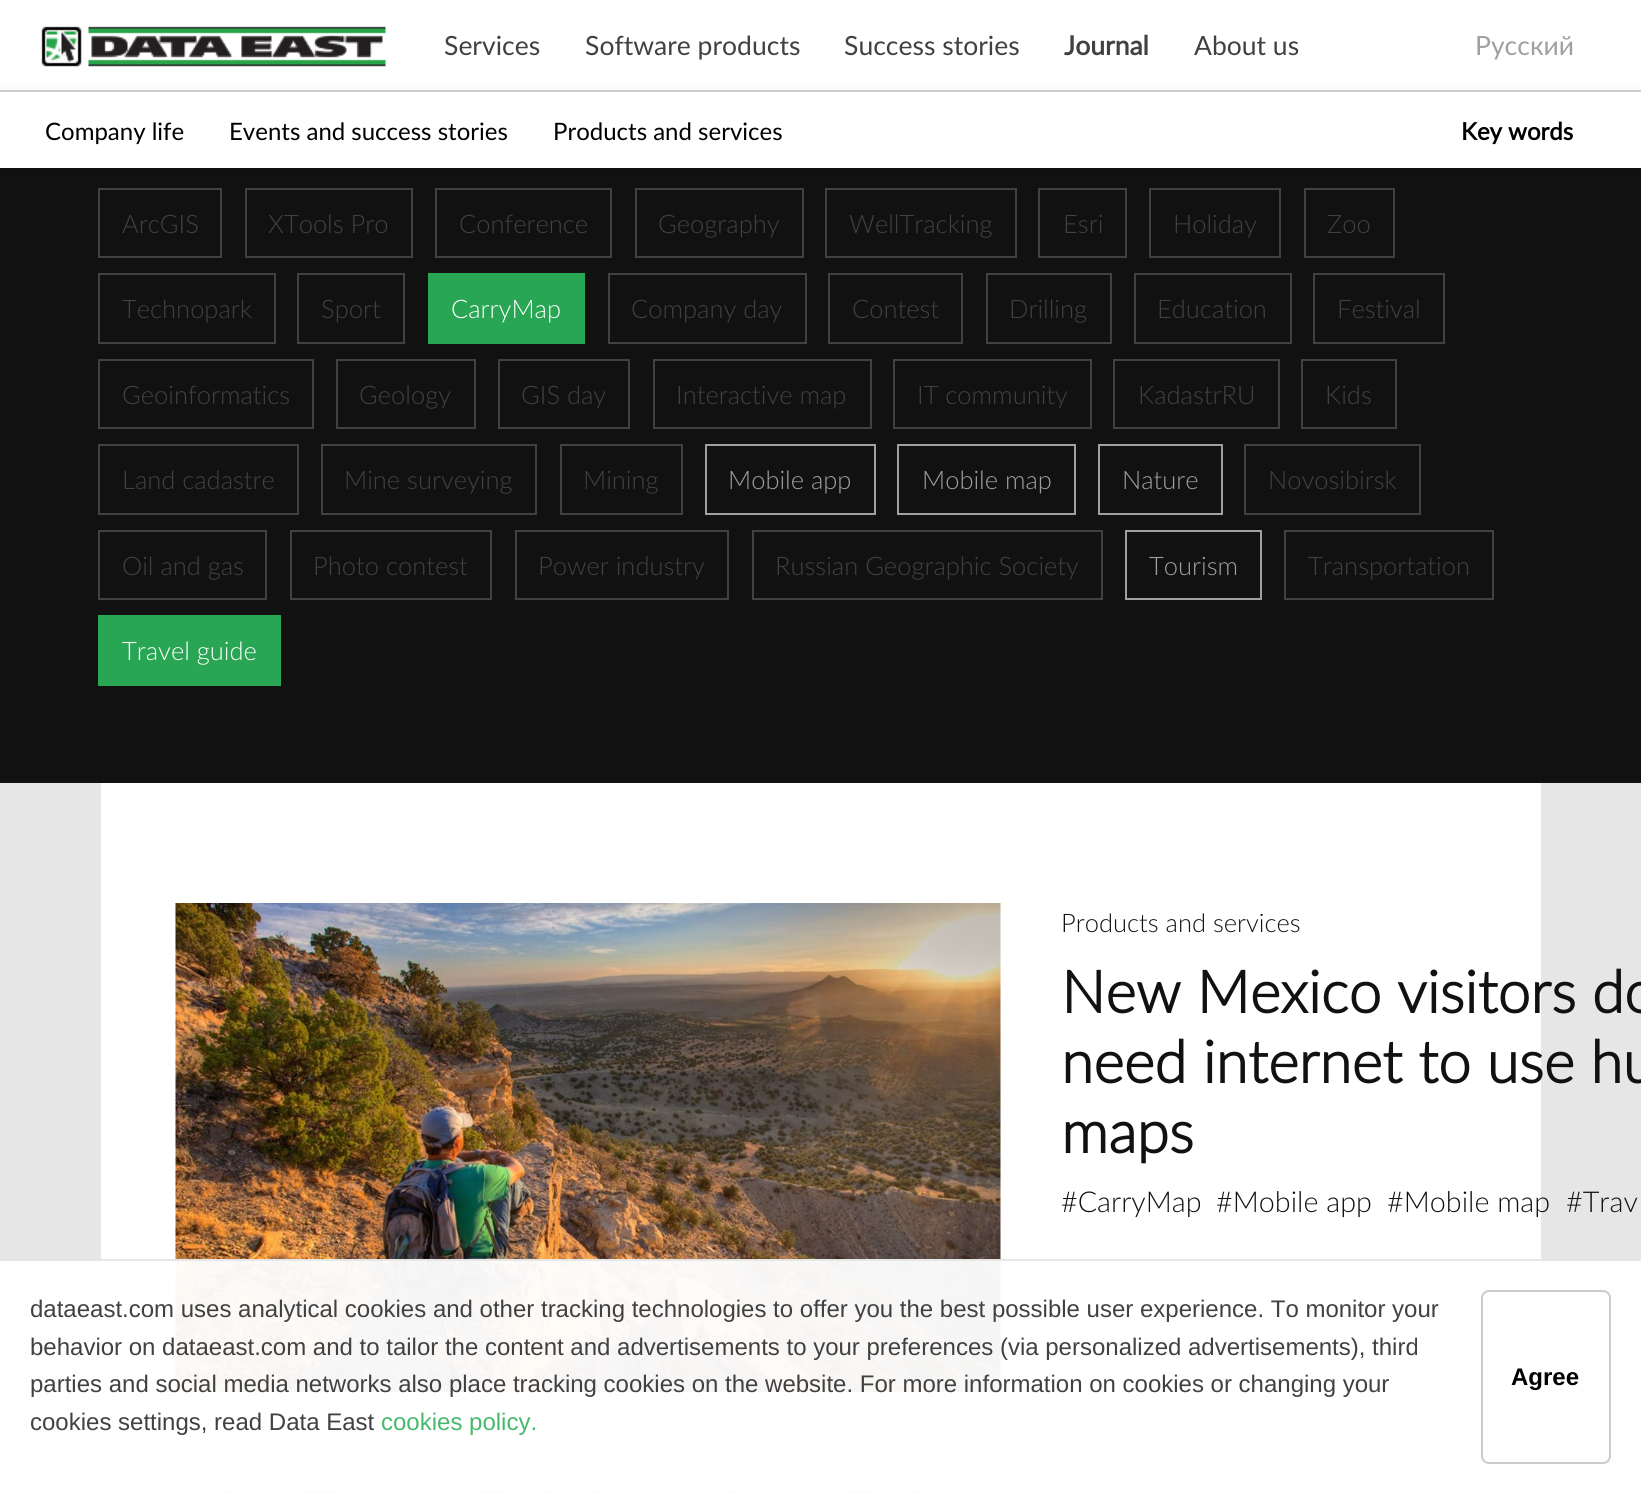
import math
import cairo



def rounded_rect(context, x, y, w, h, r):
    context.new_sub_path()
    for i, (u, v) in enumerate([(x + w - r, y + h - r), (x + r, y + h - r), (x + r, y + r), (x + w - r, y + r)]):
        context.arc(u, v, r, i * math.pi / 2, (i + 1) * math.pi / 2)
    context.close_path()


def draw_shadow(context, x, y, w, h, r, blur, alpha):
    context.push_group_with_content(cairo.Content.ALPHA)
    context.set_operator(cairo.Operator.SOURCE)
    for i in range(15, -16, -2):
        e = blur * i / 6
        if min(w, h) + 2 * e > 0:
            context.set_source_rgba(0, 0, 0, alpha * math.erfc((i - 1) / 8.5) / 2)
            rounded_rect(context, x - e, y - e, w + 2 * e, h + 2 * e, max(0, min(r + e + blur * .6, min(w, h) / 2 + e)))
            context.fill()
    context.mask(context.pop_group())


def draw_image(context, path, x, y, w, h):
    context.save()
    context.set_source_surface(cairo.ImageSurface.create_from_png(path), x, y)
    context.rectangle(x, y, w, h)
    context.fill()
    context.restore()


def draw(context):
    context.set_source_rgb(1, 1, 1)
    context.paint()
    draw_image(context, "images/1.png", 41, 26, 345, 41)
    context.set_source_rgb(17 / 255, 17 / 255, 17 / 255)
    context.rectangle(0, 168, 1641, 615)
    context.fill()
    context.rectangle(99, 189, 122, 68)
    context.set_source_rgb(65 / 255, 65 / 255, 65 / 255)
    context.stroke()
    context.rectangle(246, 189, 166, 68)
    context.stroke()
    context.rectangle(436, 189, 175, 68)
    context.stroke()
    context.rectangle(636, 189, 167, 68)
    context.stroke()
    context.rectangle(826, 189, 190, 68)
    context.stroke()
    context.rectangle(1039, 189, 87, 68)
    context.stroke()
    context.rectangle(1150, 189, 130, 68)
    context.stroke()
    context.rectangle(1305, 189, 89, 68)
    context.stroke()
    context.set_source_rgb(0, 0, 0)
    draw_shadow(context, 0, 95, 1641, 78, 0, 8.5, 0.09)
    context.set_source_rgb(1, 1, 1)
    context.rectangle(0, 92, 1641, 76)
    context.fill()
    context.set_source_rgb(204 / 255, 204 / 255, 204 / 255)
    context.rectangle(0, 90, 1641, 2)
    context.fill()
    context.rectangle(99, 274, 176, 69)
    context.set_source_rgb(65 / 255, 65 / 255, 65 / 255)
    context.stroke()
    context.rectangle(298, 274, 106, 69)
    context.stroke()
    context.set_source_rgb(41 / 255, 166 / 255, 83 / 255)
    context.rectangle(428, 273, 157, 71)
    context.fill()
    context.rectangle(609, 274, 197, 69)
    context.set_source_rgb(65 / 255, 65 / 255, 65 / 255)
    context.stroke()
    context.rectangle(829, 274, 133, 69)
    context.stroke()
    context.rectangle(987, 274, 124, 69)
    context.stroke()
    context.rectangle(1135, 274, 156, 69)
    context.stroke()
    context.rectangle(1314, 274, 130, 69)
    context.stroke()
    context.rectangle(99, 360, 214, 68)
    context.stroke()
    context.rectangle(337, 360, 138, 68)
    context.stroke()
    context.rectangle(499, 360, 130, 68)
    context.stroke()
    context.rectangle(654, 360, 217, 68)
    context.stroke()
    context.rectangle(894, 360, 197, 68)
    context.stroke()
    context.rectangle(1114, 360, 165, 68)
    context.stroke()
    context.rectangle(1302, 360, 94, 68)
    context.stroke()
    context.rectangle(99, 445, 199, 69)
    context.stroke()
    context.rectangle(322, 445, 214, 69)
    context.stroke()
    context.rectangle(561, 445, 121, 69)
    context.stroke()
    context.rectangle(706, 445, 169, 69)
    context.set_source_rgb(160 / 255, 160 / 255, 160 / 255)
    context.stroke()
    context.rectangle(898, 445, 177, 69)
    context.stroke()
    context.rectangle(1099, 445, 123, 69)
    context.stroke()
    context.rectangle(1245, 445, 175, 69)
    context.set_source_rgb(65 / 255, 65 / 255, 65 / 255)
    context.stroke()
    context.rectangle(99, 531, 167, 68)
    context.stroke()
    context.rectangle(291, 531, 200, 68)
    context.stroke()
    context.rectangle(516, 531, 212, 68)
    context.stroke()
    context.rectangle(753, 531, 349, 68)
    context.stroke()
    context.rectangle(1126, 531, 135, 68)
    context.set_source_rgb(160 / 255, 160 / 255, 160 / 255)
    context.stroke()
    context.rectangle(1285, 531, 208, 68)
    context.set_source_rgb(65 / 255, 65 / 255, 65 / 255)
    context.stroke()
    context.set_source_rgb(41 / 255, 166 / 255, 83 / 255)
    context.rectangle(98, 615, 183, 71)
    context.fill()
    context.set_source_rgb(230 / 255, 230 / 255, 230 / 255)
    context.rectangle(0, 783, 1641, 710)
    context.fill()
    context.set_source_rgb(1, 1, 1)
    context.rectangle(101, 783, 1440, 710)
    context.fill()
    draw_image(context, "images/2.png", 175, 903, 826, 489)
    draw_image(context, "images/3.png", 175, 1492, 826, 1)
    context.set_source_rgba(1, 1, 1, 0.95)
    context.rectangle(0, 1261, 1641, 232)
    context.fill()
    context.set_source_rgb(230 / 255, 230 / 255, 230 / 255)
    context.rectangle(101, 1259, 1440, 2)
    context.fill()
    rounded_rect(context, 1482, 1291, 128, 172, 7)
    context.set_source_rgb(204 / 255, 204 / 255, 204 / 255)
    context.stroke()
    context.select_font_face("Lato")
    context.set_font_size(26.5)
    context.set_source_rgb(65 / 255, 65 / 255, 65 / 255)
    context.move_to(444, 55)
    context.show_text("Services")
    context.move_to(585, 55)
    context.show_text("Software products")
    context.move_to(844, 55)
    context.show_text("Success stories")
    context.select_font_face("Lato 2", cairo.FontSlant.NORMAL, cairo.FontWeight.BOLD)
    context.move_to(1064, 55)
    context.show_text("Journal")
    context.select_font_face("Lato")
    context.move_to(1194, 55)
    context.show_text("About us")
    context.set_source_rgb(160 / 255, 160 / 255, 160 / 255)
    context.move_to(1475, 55)
    context.show_text("Русский")
    context.set_font_size(24)
    context.set_source_rgb(0, 0, 0)
    context.move_to(45, 140)
    context.show_text("Company life")
    context.move_to(229, 140)
    context.show_text("Events and success stories")
    context.move_to(553, 140)
    context.show_text("Products and services")
    context.select_font_face("Lato 2", cairo.FontSlant.NORMAL, cairo.FontWeight.BOLD)
    context.move_to(1461, 140)
    context.show_text("Key words")
    context.select_font_face("Lato Light")
    context.set_font_size(25.5)
    context.set_source_rgb(65 / 255, 65 / 255, 65 / 255)
    context.move_to(122, 233)
    context.show_text("ArcGIS")
    context.move_to(268, 233)
    context.show_text("XTools Pro")
    context.move_to(459, 233)
    context.show_text("Conference")
    context.move_to(658, 233)
    context.show_text("Geography")
    context.move_to(849, 233)
    context.show_text("WellTracking")
    context.move_to(1063, 233)
    context.show_text("Esri")
    context.move_to(1173, 233)
    context.show_text("Holiday")
    context.move_to(1327, 233)
    context.show_text("Zoo")
    context.move_to(122, 318)
    context.show_text("Technopark")
    context.move_to(321, 318)
    context.show_text("Sport")
    context.set_source_rgb(1, 1, 1)
    context.move_to(451, 318)
    context.show_text("CarryMap")
    context.set_source_rgb(65 / 255, 65 / 255, 65 / 255)
    context.move_to(631, 318)
    context.show_text("Company day")
    context.move_to(852, 318)
    context.show_text("Contest")
    context.move_to(1009, 318)
    context.show_text("Drilling")
    context.move_to(1157, 318)
    context.show_text("Education")
    context.move_to(1337, 318)
    context.show_text("Festival")
    context.move_to(122, 404)
    context.show_text("Geoinformatics")
    context.move_to(359, 404)
    context.show_text("Geology")
    context.move_to(521, 404)
    context.show_text("GIS day")
    context.move_to(676, 404)
    context.show_text("Interactive map")
    context.move_to(917, 404)
    context.show_text("IT community")
    context.move_to(1138, 404)
    context.show_text("KadastrRU")
    context.move_to(1325, 404)
    context.show_text("Kids")
    context.move_to(122, 489)
    context.show_text("Land cadastre")
    context.move_to(344, 489)
    context.show_text("Mine surveying")
    context.move_to(583, 489)
    context.show_text("Mining")
    context.set_source_rgb(160 / 255, 160 / 255, 160 / 255)
    context.move_to(728, 489)
    context.show_text("Mobile app")
    context.move_to(922, 489)
    context.show_text("Mobile map")
    context.move_to(1122, 489)
    context.show_text("Nature")
    context.set_source_rgb(65 / 255, 65 / 255, 65 / 255)
    context.move_to(1268, 489)
    context.show_text("Novosibirsk")
    context.move_to(122, 575)
    context.show_text("Oil and gas")
    context.move_to(313, 575)
    context.show_text("Photo contest")
    context.move_to(538, 575)
    context.show_text("Power industry")
    context.move_to(775, 575)
    context.show_text("Russian Geographic Society")
    context.set_source_rgb(160 / 255, 160 / 255, 160 / 255)
    context.move_to(1149, 575)
    context.show_text("Tourism")
    context.set_source_rgb(65 / 255, 65 / 255, 65 / 255)
    context.move_to(1308, 575)
    context.show_text("Transportation")
    context.set_source_rgb(1, 1, 1)
    context.move_to(122, 660)
    context.show_text("Travel guide")
    context.set_source_rgb(17 / 255, 17 / 255, 17 / 255)
    context.move_to(1061, 932)
    context.show_text("Products and services")
    context.select_font_face("Lato", cairo.FontSlant.NORMAL, cairo.FontWeight.BOLD)
    context.set_font_size(58.6)
    context.move_to(1061, 1013)
    context.show_text("New Mexico visitors do")
    context.move_to(1061, 1083)
    context.show_text("need internet to use hu")
    context.move_to(1061, 1153)
    context.show_text("maps")
    context.select_font_face("Lato Light")
    context.set_font_size(28.75)
    context.move_to(1061, 1212)
    context.show_text("#CarryMap")
    context.move_to(1216, 1212)
    context.show_text("#Mobile app")
    context.move_to(1387, 1212)
    context.show_text("#Mobile map")
    context.move_to(1566, 1212)
    context.show_text("#Trav")
    context.select_font_face("Liberation Sans")
    context.set_font_size(24)
    context.set_source_rgb(65 / 255, 65 / 255, 65 / 255)
    context.move_to(30, 1317)
    context.show_text("dataeast.com uses analytical cookies and other tracking technologies to offer you the best possible user experience. To monitor your")
    context.move_to(30, 1355)
    context.show_text("behavior on dataeast.com and to tailor the content and advertisements to your preferences (via personalized advertisements), third")
    context.move_to(30, 1392)
    context.show_text("parties and social media networks also place tracking cookies on the website. For more information on cookies or changing your")
    context.move_to(30, 1430)
    context.show_text("cookies settings, read Data East")
    context.set_source_rgb(71 / 255, 185 / 255, 108 / 255)
    context.move_to(381, 1430)
    context.show_text("cookies policy.")
    context.select_font_face("Liberation Sans", cairo.FontSlant.NORMAL, cairo.FontWeight.BOLD)
    context.set_source_rgb(0, 0, 0)
    context.move_to(1511, 1385)
    context.show_text("Agree")


surface = cairo.ImageSurface(cairo.Format.RGB24, 1641, 1493)
context = cairo.Context(surface)
options = cairo.FontOptions()
options.set_hint_metrics(cairo.HintMetrics.OFF)
options.set_hint_style(cairo.HintStyle.NONE)
context.set_font_options(options)
context.set_miter_limit(4)
draw(context)
surface.write_to_png("out.png")
